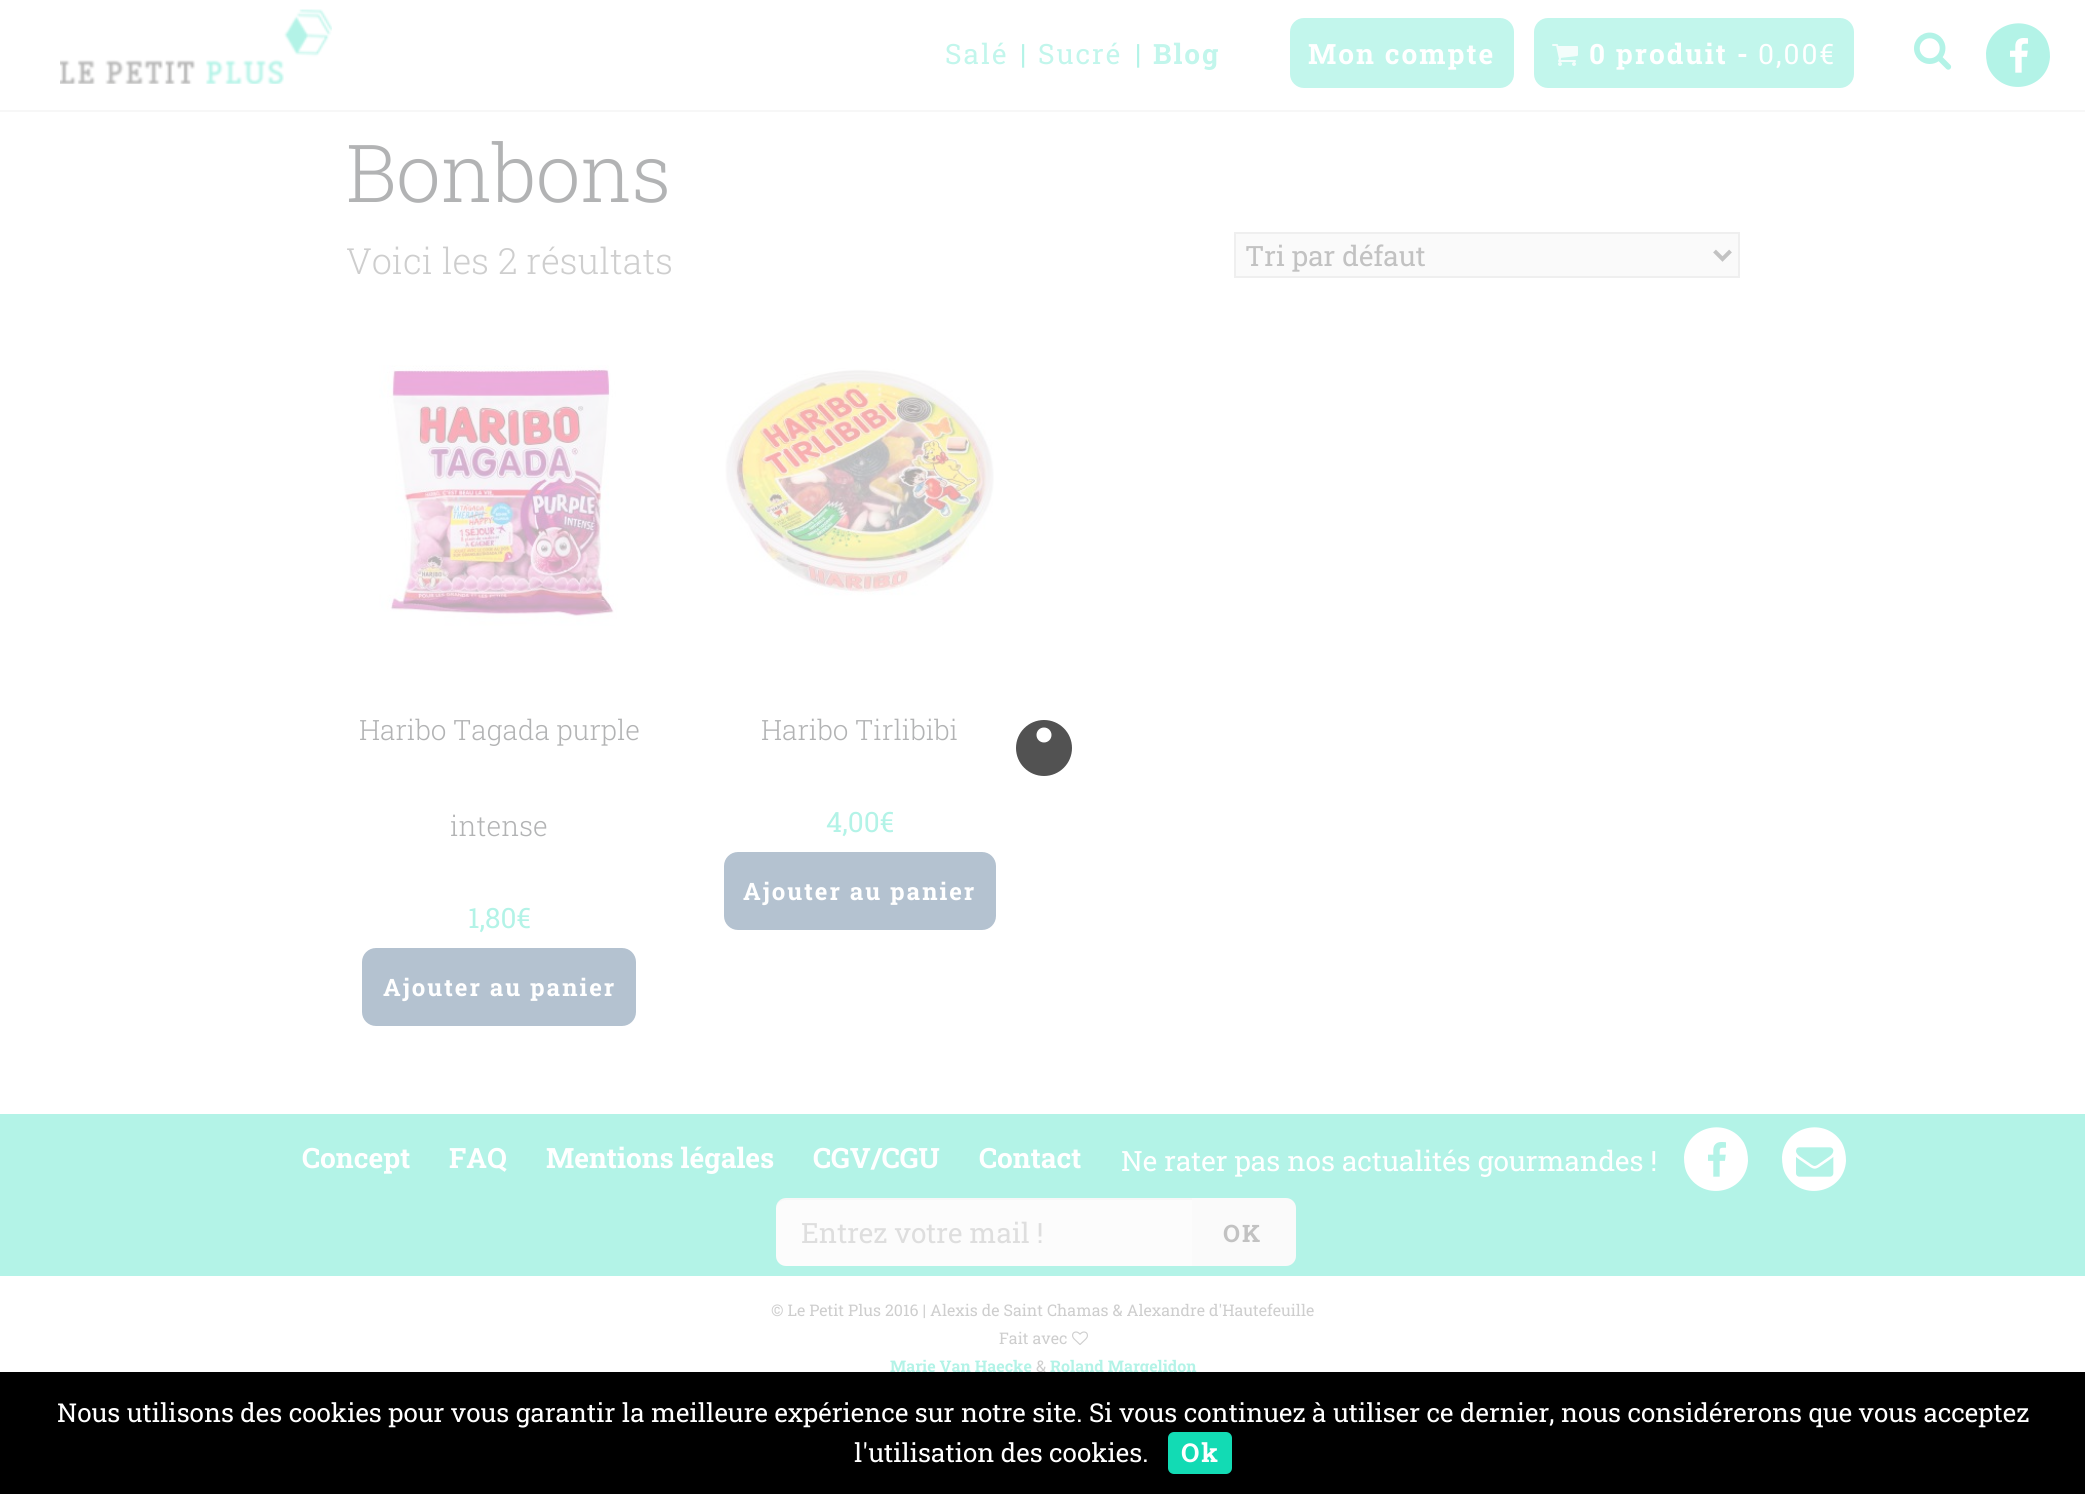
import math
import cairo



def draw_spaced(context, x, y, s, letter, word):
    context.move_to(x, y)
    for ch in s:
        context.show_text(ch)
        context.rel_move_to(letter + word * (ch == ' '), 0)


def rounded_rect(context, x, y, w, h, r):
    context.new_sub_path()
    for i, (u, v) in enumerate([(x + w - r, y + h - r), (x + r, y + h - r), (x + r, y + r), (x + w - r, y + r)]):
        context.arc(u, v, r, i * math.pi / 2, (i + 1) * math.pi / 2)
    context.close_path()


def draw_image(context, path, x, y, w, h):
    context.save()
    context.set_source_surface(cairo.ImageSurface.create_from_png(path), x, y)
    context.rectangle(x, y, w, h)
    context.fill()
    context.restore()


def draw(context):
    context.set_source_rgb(1, 1, 1)
    context.paint()
    context.set_source_rgb(247 / 255, 247 / 255, 247 / 255)
    context.rectangle(0, 110, 2085, 2)
    context.fill()
    draw_image(context, "images/1.png", 60, 9, 272, 75)
    context.set_source_rgb(194 / 255, 246 / 255, 236 / 255)
    rounded_rect(context, 1290, 18, 224, 70, 14)
    context.fill()
    rounded_rect(context, 1534, 18, 320, 70, 14)
    context.fill()
    draw_image(context, "images/2.png", 1552, 44, 26, 22)
    draw_image(context, "images/3.png", 1914, 32, 38, 38)
    context.set_source_rgb(179 / 255, 243 / 255, 231 / 255)
    context.new_path()
    context.move_to(2046, 39)
    context.curve_to(2049, 45, 2050, 51, 2050, 57)
    context.curve_to(2048, 89, 2006, 98, 1990, 71)
    context.curve_to(1987, 66, 1986, 60, 1986, 53)
    context.curve_to(1988, 22, 2030, 12, 2046, 39)
    context.close_path()
    context.fill()
    draw_image(context, "images/4.png", 2010, 38, 18, 35)
    context.set_source_rgb(250 / 255, 250 / 255, 250 / 255)
    context.rectangle(1235, 233, 504, 44)
    context.fill_preserve()
    context.set_source_rgb(239 / 255, 239 / 255, 239 / 255)
    context.stroke()
    context.new_path()
    context.move_to(1714.5, 251)
    context.line_to(1722.5, 259)
    context.line_to(1730.5, 251)
    context.set_source_rgb(194 / 255, 194 / 255, 194 / 255)
    context.set_line_width(4)
    context.stroke()
    draw_image(context, "images/5.png", 379, 365, 239, 261)
    context.set_source_rgb(180 / 255, 194 / 255, 208 / 255)
    rounded_rect(context, 363, 949, 272, 76, 13)
    context.fill_preserve()
    context.set_line_width(2)
    context.stroke()
    draw_image(context, "images/6.png", 725, 368, 269, 228)
    rounded_rect(context, 725, 853, 270, 76, 13)
    context.fill_preserve()
    context.stroke()
    context.set_source_rgb(179 / 255, 243 / 255, 231 / 255)
    context.rectangle(0, 1114, 2085, 162)
    context.fill()
    context.set_source_rgb(1, 1, 1)
    context.new_path()
    context.move_to(1744, 1143)
    context.curve_to(1747, 1149, 1748, 1155, 1748, 1161)
    context.curve_to(1746, 1193, 1704, 1202, 1688, 1175)
    context.curve_to(1685, 1170, 1684, 1164, 1684, 1157)
    context.curve_to(1686, 1126, 1728, 1116, 1744, 1143)
    context.close_path()
    context.fill()
    draw_image(context, "images/7.png", 1708, 1142, 18, 35)
    context.new_path()
    context.move_to(1842, 1143)
    context.curve_to(1845, 1149, 1846, 1155, 1846, 1161)
    context.curve_to(1844, 1193, 1802, 1202, 1786, 1175)
    context.curve_to(1783, 1170, 1782, 1164, 1782, 1157)
    context.curve_to(1784, 1126, 1826, 1116, 1842, 1143)
    context.close_path()
    context.fill()
    draw_image(context, "images/8.png", 1796, 1147, 38, 30)
    context.set_source_rgb(252 / 255, 252 / 255, 252 / 255)
    context.new_path()
    context.move_to(786, 1198)
    context.line_to(1192, 1198)
    context.line_to(1192, 1266)
    context.line_to(786, 1266)
    context.curve_to(780.5, 1266, 776, 1261.5, 776, 1256)
    context.line_to(776, 1208)
    context.curve_to(776, 1202.5, 780.5, 1198, 786, 1198)
    context.close_path()
    context.fill()
    context.set_source_rgba(173 / 255, 173 / 255, 173 / 255, 0.07)
    context.new_path()
    context.move_to(786, 1200)
    context.line_to(1192, 1200)
    context.line_to(1192, 1198)
    context.line_to(784, 1198)
    context.curve_to(778, 1199, 776, 1205, 776, 1210)
    context.curve_to(776, 1204, 780, 1200, 786, 1200)
    context.close_path()
    context.fill()
    context.set_source_rgb(250 / 255, 250 / 255, 250 / 255)
    context.new_path()
    context.move_to(1192, 1198)
    context.line_to(1286, 1198)
    context.curve_to(1291.5, 1198, 1296, 1202.5, 1296, 1208)
    context.line_to(1296, 1256)
    context.curve_to(1296, 1261.5, 1291.5, 1266, 1286, 1266)
    context.line_to(1192, 1266)
    context.close_path()
    context.fill()
    draw_image(context, "images/9.png", 1072, 1331, 16, 14)
    context.set_source_rgb(82 / 255, 82 / 255, 82 / 255)
    context.arc(1044, 748, 28, 0, 2 * math.pi)
    context.fill()
    context.set_source_rgb(1, 1, 1)
    context.arc(1044, 735, 7.5, 0, 2 * math.pi)
    context.fill()
    context.select_font_face("Roboto Slab")
    context.set_font_size(28)
    context.set_source_rgb(194 / 255, 246 / 255, 236 / 255)
    draw_spaced(context, 945, 64, "Salé", 2, 0)
    context.set_source_rgb(179 / 255, 243 / 255, 231 / 255)
    context.move_to(1020, 64)
    context.show_text("|")
    context.set_source_rgb(194 / 255, 246 / 255, 236 / 255)
    draw_spaced(context, 1038, 64, "Sucré", 2, 0)
    context.set_source_rgb(179 / 255, 243 / 255, 231 / 255)
    context.move_to(1135, 64)
    context.show_text("|")
    context.select_font_face("Roboto Slab", cairo.FontSlant.NORMAL, cairo.FontWeight.BOLD)
    context.set_source_rgb(194 / 255, 246 / 255, 236 / 255)
    draw_spaced(context, 1153, 64, "Blog", 2, 0)
    context.set_source_rgb(1, 1, 1)
    draw_spaced(context, 1308, 64, "Mon compte", 2, 0)
    draw_spaced(context, 1589, 64, "0 produit -", 2, 0)
    context.select_font_face("Roboto Slab")
    draw_spaced(context, 1758, 64, "0,00€", 2, 0)
    context.select_font_face("Roboto Slab Light")
    context.set_font_size(80)
    context.set_source_rgb(178 / 255, 179 / 255, 180 / 255)
    context.move_to(346, 202)
    context.show_text("Bonbons")
    context.set_font_size(36)
    context.set_source_rgb(206 / 255, 206 / 255, 206 / 255)
    context.move_to(346, 274)
    context.show_text("Voici les 2 résultats")
    context.select_font_face("Roboto Slab")
    context.set_font_size(28)
    context.set_source_rgb(194 / 255, 194 / 255, 194 / 255)
    context.move_to(1245, 266)
    context.show_text("Tri par défaut")
    context.select_font_face("Roboto Slab Light")
    context.set_source_rgb(178 / 255, 179 / 255, 180 / 255)
    context.move_to(359, 740)
    context.show_text("Haribo Tagada purple")
    context.move_to(450, 836)
    context.show_text("intense")
    context.select_font_face("Roboto Slab")
    context.set_source_rgb(179 / 255, 243 / 255, 231 / 255)
    context.move_to(468, 928)
    context.show_text("1,80€")
    context.select_font_face("Roboto Slab", cairo.FontSlant.NORMAL, cairo.FontWeight.BOLD)
    context.set_font_size(24)
    context.set_source_rgb(1, 1, 1)
    draw_spaced(context, 383, 996, "Ajouter au panier", 2, 0)
    context.select_font_face("Roboto Slab Light")
    context.set_font_size(28)
    context.set_source_rgb(178 / 255, 179 / 255, 180 / 255)
    context.move_to(761, 740)
    context.show_text("Haribo Tirlibibi")
    context.select_font_face("Roboto Slab")
    context.set_source_rgb(179 / 255, 243 / 255, 231 / 255)
    context.move_to(826, 832)
    context.show_text("4,00€")
    context.select_font_face("Roboto Slab", cairo.FontSlant.NORMAL, cairo.FontWeight.BOLD)
    context.set_font_size(24)
    context.set_source_rgb(1, 1, 1)
    draw_spaced(context, 743, 900, "Ajouter au panier", 2, 0)
    context.set_font_size(28)
    context.move_to(302, 1168)
    context.show_text("Concept")
    context.move_to(449, 1168)
    context.show_text("FAQ")
    context.move_to(546, 1168)
    context.show_text("Mentions légales")
    context.move_to(813, 1168)
    context.show_text("CGV/CGU")
    context.move_to(979, 1168)
    context.show_text("Contact")
    context.select_font_face("Roboto Slab")
    context.move_to(1121, 1171)
    context.show_text("Ne rater pas nos actualités gourmandes !")
    context.set_source_rgb(222 / 255, 222 / 255, 222 / 255)
    context.move_to(801, 1243)
    context.show_text("Entrez votre mail !")
    context.select_font_face("Roboto Slab", cairo.FontSlant.NORMAL, cairo.FontWeight.BOLD)
    context.set_font_size(24)
    context.set_source_rgb(194 / 255, 194 / 255, 194 / 255)
    draw_spaced(context, 1223, 1242, "OK", 2, 0)
    context.select_font_face("Roboto Slab")
    context.set_font_size(16)
    context.set_source_rgb(206 / 255, 206 / 255, 206 / 255)
    context.move_to(771, 1316)
    context.show_text("© Le Petit Plus 2016 | Alexis de Saint Chamas & Alexandre d'Hautefeuille")
    context.move_to(999, 1344)
    context.show_text("Fait avec")
    context.select_font_face("Roboto Slab", cairo.FontSlant.NORMAL, cairo.FontWeight.BOLD)
    context.set_source_rgb(179 / 255, 243 / 255, 231 / 255)
    context.move_to(890, 1372)
    context.show_text("Marie Van Haecke")
    context.select_font_face("Roboto Slab")
    context.set_source_rgb(206 / 255, 206 / 255, 206 / 255)
    context.move_to(1036, 1372)
    context.show_text("&")
    context.select_font_face("Roboto Slab", cairo.FontSlant.NORMAL, cairo.FontWeight.BOLD)
    context.set_source_rgb(179 / 255, 243 / 255, 231 / 255)
    context.move_to(1050, 1372)
    context.show_text("Roland Margelidon")
    context.set_source_rgb(0, 0, 0)
    context.rectangle(0, 1372, 2085, 122)
    context.fill()
    context.select_font_face("Roboto Slab")
    context.set_font_size(26)
    context.set_source_rgb(1, 1, 1)
    context.move_to(57, 1422)
    context.show_text("Nous utilisons des cookies pour vous garantir la meilleure expérience sur notre site. Si vous continuez à utiliser ce dernier, nous considérerons que vous acceptez")
    context.move_to(854, 1462)
    context.show_text("l'utilisation des cookies.")
    context.set_source_rgb(18 / 255, 219 / 255, 180 / 255)
    rounded_rect(context, 1168, 1432, 64, 42, 6)
    context.fill()
    context.select_font_face("Roboto Slab", cairo.FontSlant.NORMAL, cairo.FontWeight.BOLD)
    context.set_source_rgb(1, 1, 1)
    draw_spaced(context, 1181, 1462, "Ok", 2, 0)


surface = cairo.ImageSurface(cairo.Format.RGB24, 2085, 1494)
context = cairo.Context(surface)
options = cairo.FontOptions()
options.set_hint_metrics(cairo.HintMetrics.OFF)
options.set_hint_style(cairo.HintStyle.NONE)
context.set_font_options(options)
context.set_miter_limit(4)
draw(context)
surface.write_to_png("out.png")
